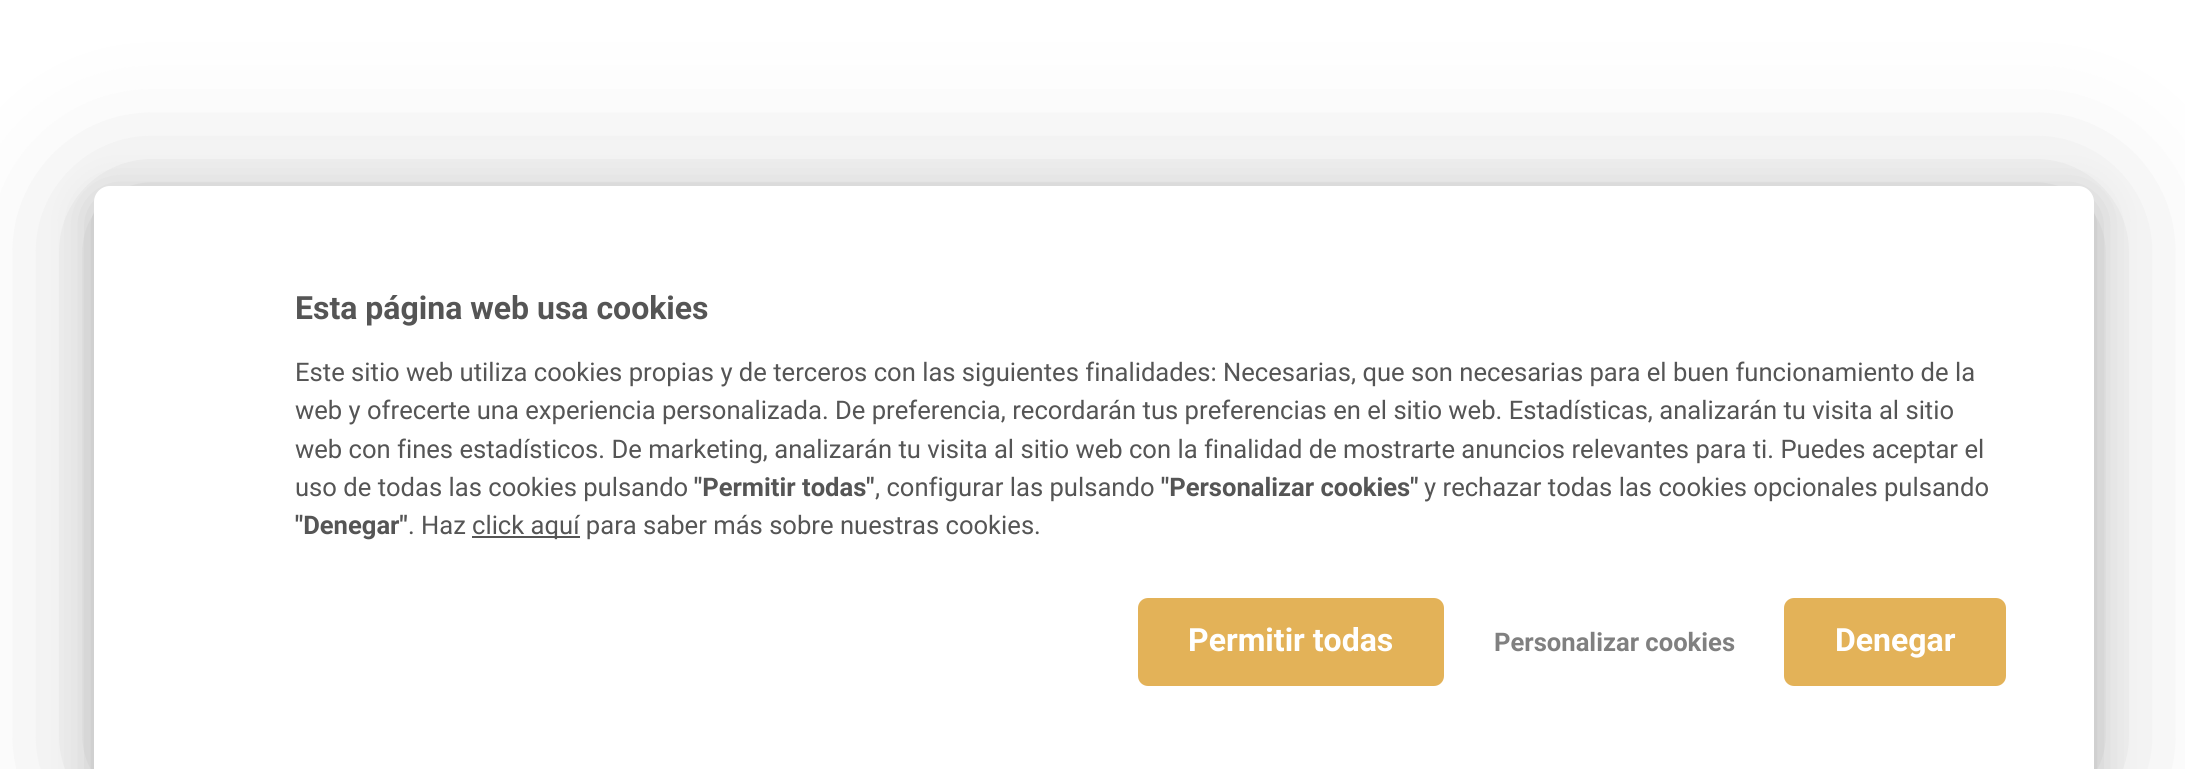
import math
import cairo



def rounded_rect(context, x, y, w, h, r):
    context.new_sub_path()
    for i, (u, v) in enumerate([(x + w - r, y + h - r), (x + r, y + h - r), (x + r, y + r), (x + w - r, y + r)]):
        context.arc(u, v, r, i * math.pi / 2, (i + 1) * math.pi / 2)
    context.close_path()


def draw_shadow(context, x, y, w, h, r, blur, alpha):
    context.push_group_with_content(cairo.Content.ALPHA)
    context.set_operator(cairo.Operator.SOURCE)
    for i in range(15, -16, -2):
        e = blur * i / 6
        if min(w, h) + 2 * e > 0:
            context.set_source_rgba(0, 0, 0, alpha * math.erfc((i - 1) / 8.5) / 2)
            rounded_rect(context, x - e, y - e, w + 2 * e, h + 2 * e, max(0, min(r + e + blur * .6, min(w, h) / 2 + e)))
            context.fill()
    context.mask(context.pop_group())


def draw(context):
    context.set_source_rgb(1, 1, 1)
    context.paint()
    context.set_source_rgb(0, 0, 0)
    draw_shadow(context, 94, 198, 2000, 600, 16, 20, 0.19)
    draw_shadow(context, 94, 194, 2000, 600, 16, 70, 0.2)
    context.set_source_rgb(1, 1, 1)
    rounded_rect(context, 94, 186, 2000, 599, 16)
    context.fill()
    context.set_source_rgb(85 / 255, 85 / 255, 85 / 255)
    context.rectangle(472, 536, 108, 2)
    context.fill()
    context.set_source_rgb(227 / 255, 178 / 255, 88 / 255)
    rounded_rect(context, 1138, 598, 306, 88, 10)
    context.fill()
    rounded_rect(context, 1784, 598, 222, 88, 10)
    context.fill()
    context.select_font_face("Roboto", cairo.FontSlant.NORMAL, cairo.FontWeight.BOLD)
    context.set_font_size(32)
    context.set_source_rgb(85 / 255, 85 / 255, 85 / 255)
    context.move_to(295, 319)
    context.show_text("Esta página web usa cookies")
    context.select_font_face("Roboto")
    context.set_font_size(25.6)
    context.move_to(295, 381)
    context.show_text("Este sitio web utiliza cookies propias y de terceros con las siguientes finalidades: Necesarias, que son necesarias para el buen funcionamiento de la")
    context.move_to(295, 419)
    context.show_text("web y ofrecerte una experiencia personalizada. De preferencia, recordarán tus preferencias en el sitio web. Estadísticas, analizarán tu visita al sitio")
    context.move_to(295, 458)
    context.show_text("web con fines estadísticos. De marketing, analizarán tu visita al sitio web con la finalidad de mostrarte anuncios relevantes para ti. Puedes aceptar el")
    context.move_to(295, 496)
    context.show_text("uso de todas las cookies pulsando")
    context.select_font_face("Roboto", cairo.FontSlant.NORMAL, cairo.FontWeight.BOLD)
    context.move_to(694, 496)
    context.show_text("\"Permitir todas\"")
    context.select_font_face("Roboto")
    context.move_to(875, 496)
    context.show_text(", configurar las pulsando")
    context.select_font_face("Roboto", cairo.FontSlant.NORMAL, cairo.FontWeight.BOLD)
    context.move_to(1161, 496)
    context.show_text("\"Personalizar cookies\"")
    context.select_font_face("Roboto")
    context.move_to(1424, 496)
    context.show_text("y rechazar todas las cookies opcionales pulsando")
    context.select_font_face("Roboto", cairo.FontSlant.NORMAL, cairo.FontWeight.BOLD)
    context.move_to(295, 534)
    context.show_text("\"Denegar\"")
    context.select_font_face("Roboto")
    context.move_to(408, 534)
    context.show_text(". Haz")
    context.move_to(472, 534)
    context.show_text("click aquí para saber más sobre nuestras cookies.")
    context.select_font_face("Roboto", cairo.FontSlant.NORMAL, cairo.FontWeight.BOLD)
    context.set_font_size(32)
    context.set_source_rgb(1, 1, 1)
    context.move_to(1188, 651)
    context.show_text("Permitir todas")
    context.set_font_size(25.6)
    context.set_source_rgb(128 / 255, 128 / 255, 128 / 255)
    context.move_to(1494, 651)
    context.show_text("Personalizar cookies")
    context.set_font_size(32)
    context.set_source_rgb(1, 1, 1)
    context.move_to(1835, 651)
    context.show_text("Denegar")


surface = cairo.ImageSurface(cairo.Format.RGB24, 2185, 769)
context = cairo.Context(surface)
options = cairo.FontOptions()
options.set_hint_metrics(cairo.HintMetrics.OFF)
options.set_hint_style(cairo.HintStyle.NONE)
context.set_font_options(options)
context.set_miter_limit(4)
draw(context)
surface.write_to_png("out.png")
